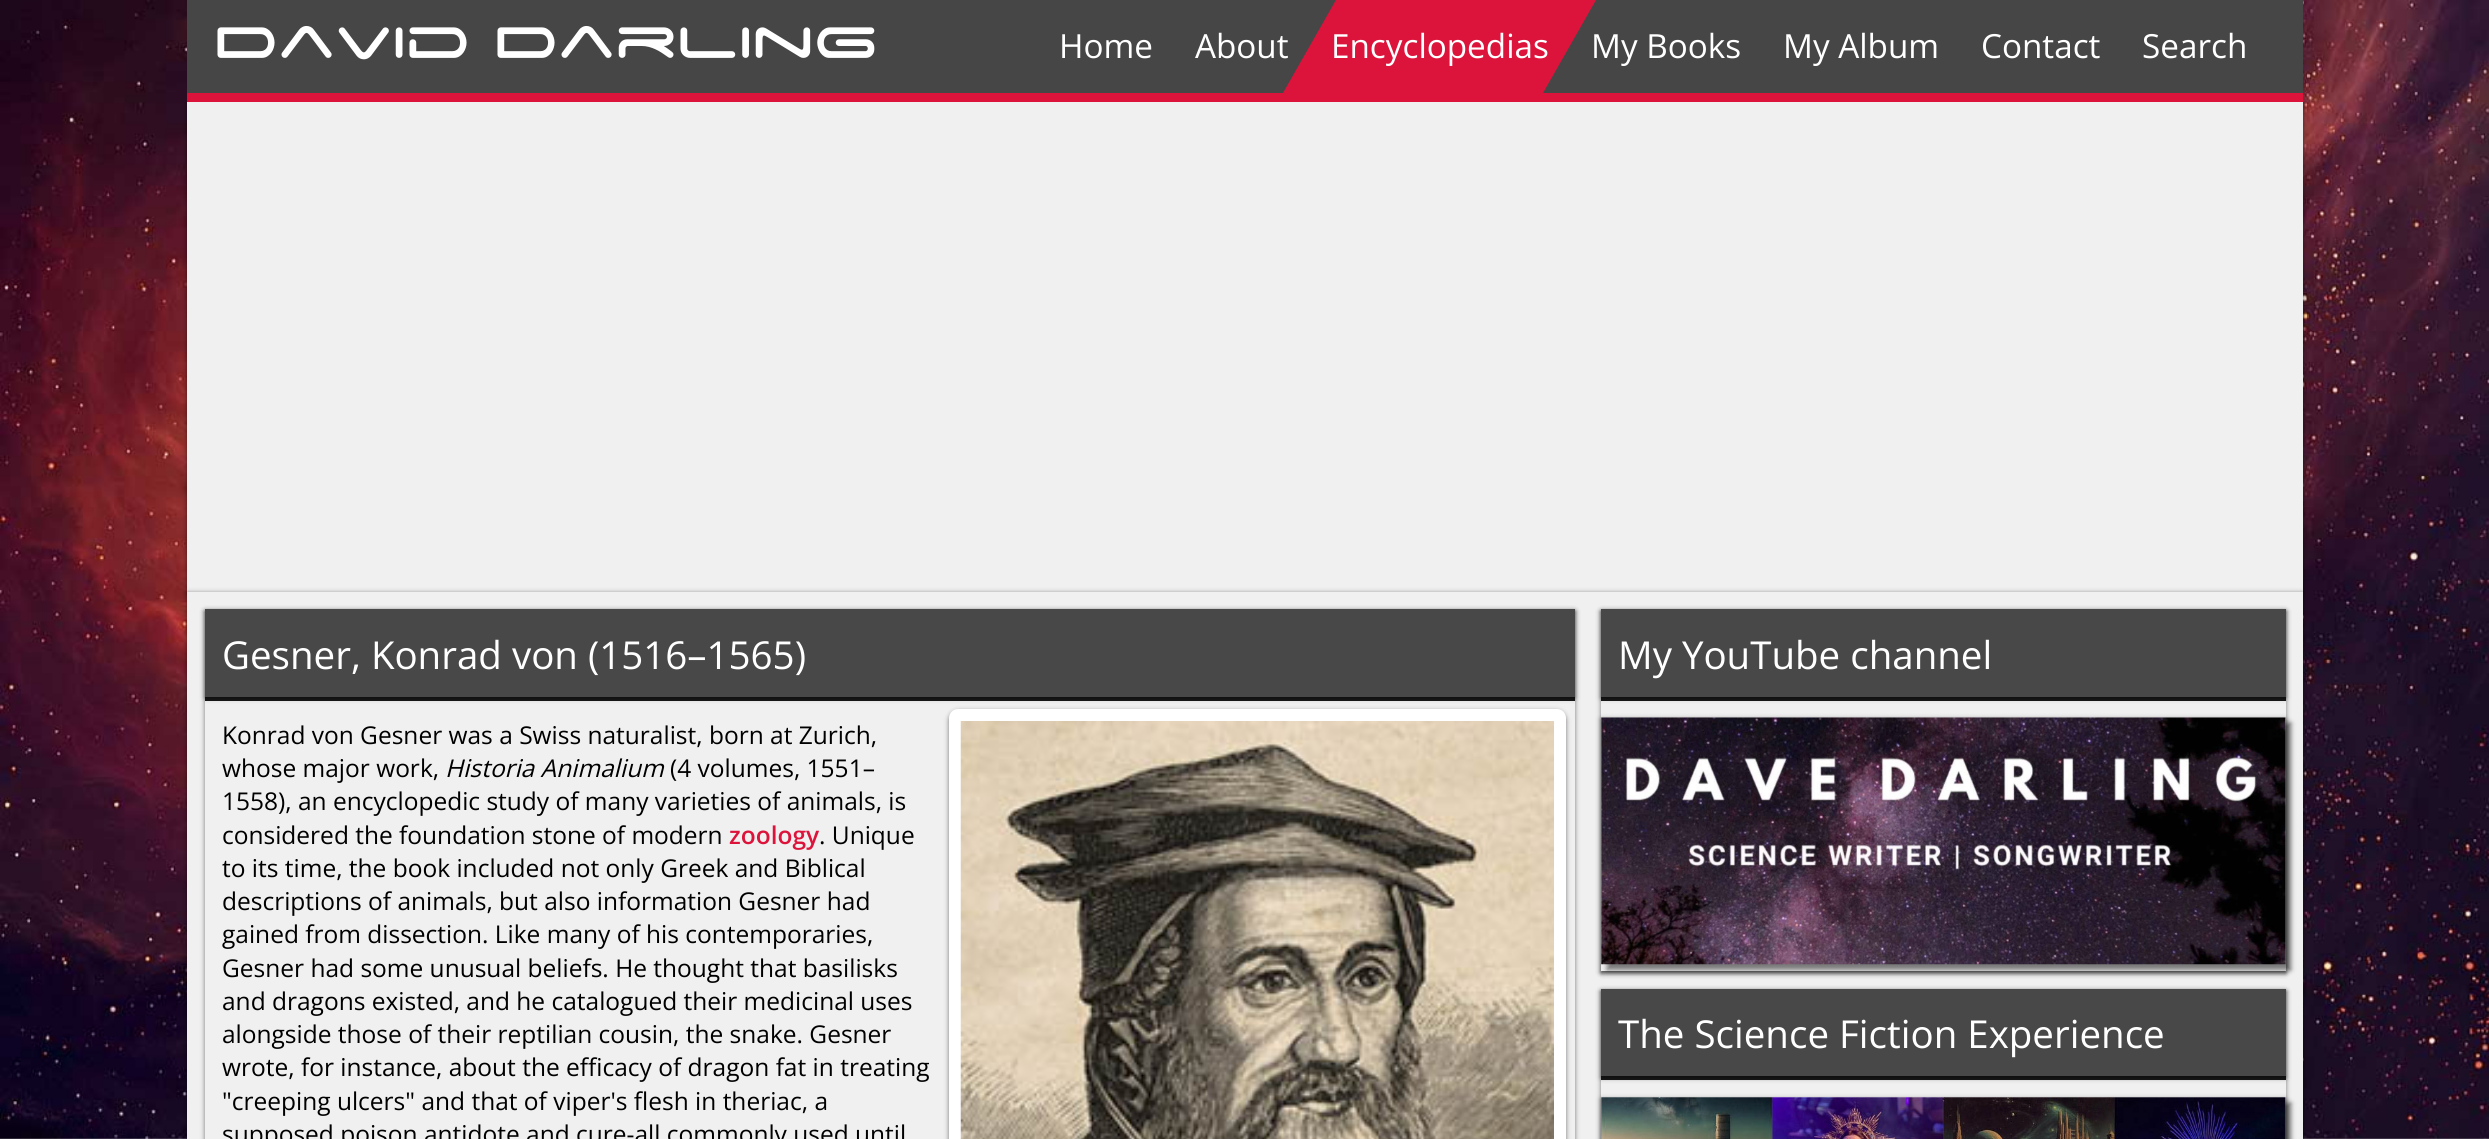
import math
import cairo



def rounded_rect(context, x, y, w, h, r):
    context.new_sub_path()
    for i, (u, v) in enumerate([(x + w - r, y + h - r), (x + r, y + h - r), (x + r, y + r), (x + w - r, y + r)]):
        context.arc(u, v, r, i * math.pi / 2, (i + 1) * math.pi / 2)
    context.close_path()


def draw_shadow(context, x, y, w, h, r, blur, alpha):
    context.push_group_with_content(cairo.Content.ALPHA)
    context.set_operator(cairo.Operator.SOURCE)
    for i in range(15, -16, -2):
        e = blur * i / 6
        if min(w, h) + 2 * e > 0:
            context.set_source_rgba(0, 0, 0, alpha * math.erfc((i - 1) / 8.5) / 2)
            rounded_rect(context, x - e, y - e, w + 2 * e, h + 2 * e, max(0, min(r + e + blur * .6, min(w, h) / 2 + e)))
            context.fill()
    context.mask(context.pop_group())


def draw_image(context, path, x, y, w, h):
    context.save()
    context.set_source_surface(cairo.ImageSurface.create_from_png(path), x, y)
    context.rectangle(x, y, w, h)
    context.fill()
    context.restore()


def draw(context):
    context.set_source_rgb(1, 1, 1)
    context.paint()
    draw_image(context, "images/1.png", 0, 0, 2489, 1139)
    context.set_source_rgb(70 / 255, 70 / 255, 70 / 255)
    context.rectangle(187, 0, 2116, 93)
    context.fill()
    context.set_source_rgb(0, 0, 0)
    draw_shadow(context, 187, 103, 2116, 490, 0, 2.5, 0.5)
    context.set_source_rgb(220 / 255, 20 / 255, 60 / 255)
    context.rectangle(187, 93, 2116, 9)
    context.fill()
    context.set_source_rgb(240 / 255, 240 / 255, 240 / 255)
    context.rectangle(187, 102, 2116, 490)
    context.fill()
    context.set_source_rgb(0, 0, 0)
    draw_shadow(context, 187, 593, 2116, 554, 0, 2.5, 0.5)
    context.set_source_rgb(240 / 255, 240 / 255, 240 / 255)
    context.rectangle(187, 592, 2116, 547)
    context.fill()
    context.save()
    context.set_fill_rule(cairo.FillRule.EVEN_ODD)
    context.new_path()
    context.move_to(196, 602)
    context.line_to(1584, 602)
    context.line_to(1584, 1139)
    context.line_to(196, 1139)
    context.close_path()
    context.move_to(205, 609)
    context.line_to(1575, 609)
    context.line_to(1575, 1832)
    context.line_to(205, 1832)
    context.close_path()
    context.clip()
    context.set_source_rgb(0, 0, 0)
    draw_shadow(context, 205, 611, 1370, 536, 0, 2.5, 0.5)
    context.restore()
    context.set_source_rgb(24 / 255, 24 / 255, 24 / 255)
    context.rectangle(205, 697, 1370, 4)
    context.fill()
    context.save()
    context.set_fill_rule(cairo.FillRule.EVEN_ODD)
    context.new_path()
    context.move_to(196, 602)
    context.line_to(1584, 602)
    context.line_to(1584, 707)
    context.line_to(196, 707)
    context.close_path()
    context.move_to(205, 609)
    context.line_to(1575, 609)
    context.line_to(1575, 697)
    context.line_to(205, 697)
    context.close_path()
    context.clip()
    context.set_source_rgb(0, 0, 0)
    draw_shadow(context, 205, 611, 1370, 87, 0, 2.5, 0.5)
    context.restore()
    context.set_source_rgba(0, 0, 0, 0.7)
    context.rectangle(205, 609, 1370, 88)
    context.fill()
    context.set_source_rgb(0, 0, 0)
    draw_shadow(context, 949, 711, 617, 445, 9, 2.5, 0.5)
    context.set_source_rgb(1, 1, 1)
    rounded_rect(context, 949, 709, 617, 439, 9)
    context.fill()
    draw_image(context, "images/2.png", 960, 721, 594, 418)
    context.set_source_rgb(0, 0, 0)
    draw_shadow(context, 1601, 611, 685, 362, 0, 2.5, 0.5)
    context.set_source_rgb(240 / 255, 240 / 255, 240 / 255)
    context.rectangle(1601, 609, 685, 109)
    context.fill()
    context.set_source_rgb(24 / 255, 24 / 255, 24 / 255)
    context.rectangle(1601, 697, 685, 4)
    context.fill()
    context.save()
    context.set_fill_rule(cairo.FillRule.EVEN_ODD)
    context.new_path()
    context.move_to(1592, 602)
    context.line_to(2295, 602)
    context.line_to(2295, 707)
    context.line_to(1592, 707)
    context.close_path()
    context.move_to(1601, 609)
    context.line_to(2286, 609)
    context.line_to(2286, 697)
    context.line_to(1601, 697)
    context.close_path()
    context.clip()
    context.set_source_rgb(0, 0, 0)
    draw_shadow(context, 1601, 611, 685, 87, 0, 2.5, 0.5)
    context.restore()
    context.set_source_rgba(0, 0, 0, 0.7)
    context.rectangle(1601, 609, 685, 88)
    context.fill()
    context.set_source_rgb(0, 0, 0)
    draw_shadow(context, 1601, 719, 685, 254, 0, 2.5, 0.5)
    context.set_source_rgb(240 / 255, 240 / 255, 240 / 255)
    context.rectangle(1601, 718, 685, 253)
    context.fill()
    context.set_source_rgb(0, 0, 0)
    draw_shadow(context, 1607, 723, 684, 247, 0, 2.5, 0.5)
    draw_image(context, "images/3.png", 1601, 717, 685, 248)
    draw_shadow(context, 1601, 991, 685, 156, 0, 2.5, 0.5)
    context.set_source_rgb(240 / 255, 240 / 255, 240 / 255)
    context.rectangle(1601, 989, 685, 108)
    context.fill()
    context.set_source_rgb(24 / 255, 24 / 255, 24 / 255)
    context.rectangle(1601, 1076, 685, 4)
    context.fill()
    context.save()
    context.set_fill_rule(cairo.FillRule.EVEN_ODD)
    context.new_path()
    context.move_to(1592, 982)
    context.line_to(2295, 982)
    context.line_to(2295, 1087)
    context.line_to(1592, 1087)
    context.close_path()
    context.move_to(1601, 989)
    context.line_to(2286, 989)
    context.line_to(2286, 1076)
    context.line_to(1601, 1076)
    context.close_path()
    context.clip()
    context.set_source_rgb(0, 0, 0)
    draw_shadow(context, 1601, 991, 685, 87, 0, 2.5, 0.5)
    context.restore()
    context.set_source_rgba(0, 0, 0, 0.7)
    context.rectangle(1601, 989, 685, 87)
    context.fill()
    context.set_source_rgb(0, 0, 0)
    draw_shadow(context, 1601, 1099, 685, 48, 0, 2.5, 0.5)
    context.set_source_rgb(240 / 255, 240 / 255, 240 / 255)
    context.rectangle(1601, 1097, 685, 42)
    context.fill()
    context.set_source_rgb(0, 0, 0)
    draw_shadow(context, 1607, 1103, 684, 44, 0, 2.5, 0.5)
    draw_image(context, "images/4.png", 1601, 1097, 685, 42)
    context.select_font_face("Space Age")
    context.set_font_size(70)
    context.set_source_rgb(1, 1, 1)
    context.move_to(214, 63)
    context.show_text("David")
    context.move_to(494, 63)
    context.show_text("Darling")
    context.select_font_face("Open Sans")
    context.set_font_size(33.25)
    context.move_to(1059, 58)
    context.show_text("Home")
    context.move_to(1195, 58)
    context.show_text("About")
    context.set_source_rgb(220 / 255, 20 / 255, 60 / 255)
    context.new_path()
    context.move_to(1336, 0)
    context.line_to(1596, 0)
    context.line_to(1543, 93)
    context.line_to(1283, 93)
    context.close_path()
    context.fill()
    context.set_source_rgb(1, 1, 1)
    context.move_to(1331, 58)
    context.show_text("Encyclopedias")
    context.move_to(1591, 58)
    context.show_text("My Books")
    context.move_to(1783, 58)
    context.show_text("My Album")
    context.move_to(1981, 58)
    context.show_text("Contact")
    context.move_to(2142, 58)
    context.show_text("Search")
    context.set_font_size(38.5)
    context.move_to(222, 669)
    context.show_text("Gesner, Konrad von (1516–1565)")
    context.set_font_size(24.5)
    context.set_source_rgb(0, 0, 0)
    context.move_to(222, 744)
    context.show_text("Konrad von Gesner was a Swiss naturalist, born at Zurich,")
    context.move_to(222, 777)
    context.show_text("whose major work,")
    context.select_font_face("Open Sans", cairo.FontSlant.ITALIC)
    context.move_to(445, 777)
    context.show_text("Historia Animalium")
    context.select_font_face("Open Sans")
    context.move_to(670, 777)
    context.show_text("(4 volumes, 1551–")
    context.move_to(222, 810)
    context.show_text("1558), an encyclopedic study of many varieties of animals, is")
    context.move_to(222, 844)
    context.show_text("considered the foundation stone of modern")
    context.select_font_face("Open Sans SemiBold")
    context.set_source_rgb(220 / 255, 20 / 255, 60 / 255)
    context.move_to(729, 844)
    context.show_text("zoology")
    context.select_font_face("Open Sans")
    context.set_source_rgb(0, 0, 0)
    context.move_to(819, 844)
    context.show_text(". Unique")
    context.move_to(222, 877)
    context.show_text("to its time, the book included not only Greek and Biblical")
    context.move_to(222, 910)
    context.show_text("descriptions of animals, but also information Gesner had")
    context.move_to(222, 943)
    context.show_text("gained from dissection. Like many of his contemporaries,")
    context.move_to(222, 977)
    context.show_text("Gesner had some unusual beliefs. He thought that basilisks")
    context.move_to(222, 1010)
    context.show_text("and dragons existed, and he catalogued their medicinal uses")
    context.move_to(222, 1043)
    context.show_text("alongside those of their reptilian cousin, the snake. Gesner")
    context.move_to(222, 1076)
    context.show_text("wrote, for instance, about the efficacy of dragon fat in treating")
    context.move_to(222, 1110)
    context.show_text("\"creeping ulcers\" and that of viper's flesh in theriac, a")
    context.move_to(222, 1143)
    context.show_text("supposed poison antidote and cure-all commonly used until")
    context.set_font_size(38.5)
    context.set_source_rgb(1, 1, 1)
    context.move_to(1618, 669)
    context.show_text("My YouTube channel")
    context.move_to(1618, 1048)
    context.show_text("The Science Fiction Experience")


surface = cairo.ImageSurface(cairo.Format.RGB24, 2489, 1139)
context = cairo.Context(surface)
options = cairo.FontOptions()
options.set_hint_metrics(cairo.HintMetrics.OFF)
options.set_hint_style(cairo.HintStyle.NONE)
context.set_font_options(options)
context.set_miter_limit(4)
draw(context)
surface.write_to_png("out.png")
